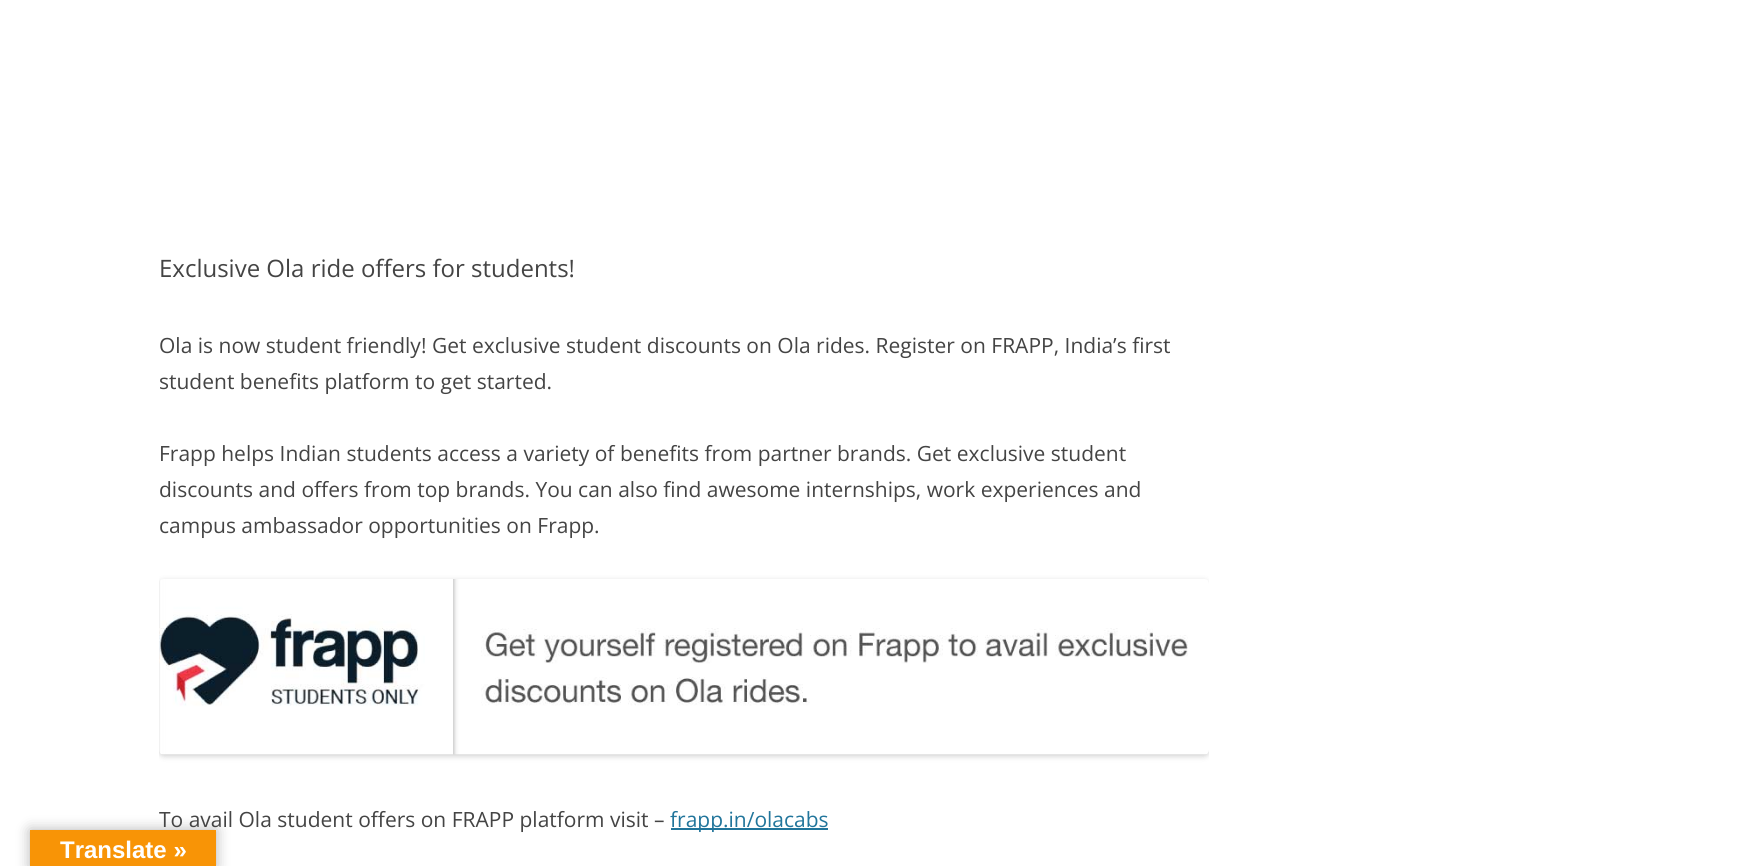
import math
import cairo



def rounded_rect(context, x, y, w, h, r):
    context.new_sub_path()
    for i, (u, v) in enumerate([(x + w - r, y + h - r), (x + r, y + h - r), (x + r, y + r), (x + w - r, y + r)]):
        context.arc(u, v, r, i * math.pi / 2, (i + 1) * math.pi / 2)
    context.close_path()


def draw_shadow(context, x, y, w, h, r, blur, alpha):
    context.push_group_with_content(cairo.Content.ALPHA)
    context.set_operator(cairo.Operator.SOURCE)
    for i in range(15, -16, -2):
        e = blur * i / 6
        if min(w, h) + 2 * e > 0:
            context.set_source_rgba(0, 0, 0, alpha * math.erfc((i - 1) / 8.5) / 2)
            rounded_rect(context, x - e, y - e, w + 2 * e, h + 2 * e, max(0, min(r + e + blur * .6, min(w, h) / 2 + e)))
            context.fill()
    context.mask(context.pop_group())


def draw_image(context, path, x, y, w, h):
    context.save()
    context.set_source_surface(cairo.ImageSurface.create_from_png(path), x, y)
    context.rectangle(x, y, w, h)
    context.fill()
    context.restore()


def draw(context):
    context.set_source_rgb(1, 1, 1)
    context.paint()
    context.save()
    context.rectangle(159, 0, 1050, 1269)
    context.clip()
    context.set_source_rgb(0, 0, 0)
    draw_shadow(context, 159, 581, 1050, 175, 5, 3, 0.2)
    context.restore()
    draw_image(context, "images/1.png", 159, 579, 1050, 176)
    context.set_source_rgb(33 / 255, 117 / 255, 155 / 255)
    context.rectangle(671, 828, 157, 2)
    context.fill()
    context.set_source_rgb(0, 0, 0)
    draw_shadow(context, 30, 830, 186, 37, 0, 7, 0.3)
    context.select_font_face("Open Sans")
    context.set_font_size(24)
    context.set_source_rgb(68 / 255, 68 / 255, 68 / 255)
    context.move_to(159, 277)
    context.show_text("Exclusive Ola ride offers for students!")
    context.set_font_size(21)
    context.move_to(159, 353)
    context.show_text("Ola is now student friendly! Get exclusive student discounts on Ola rides. Register on FRAPP, India’s first")
    context.move_to(159, 389)
    context.show_text("student benefits platform to get started.")
    context.move_to(159, 461)
    context.show_text("Frapp helps Indian students access a variety of benefits from partner brands. Get exclusive student")
    context.move_to(159, 497)
    context.show_text("discounts and offers from top brands. You can also find awesome internships, work experiences and")
    context.move_to(159, 533)
    context.show_text("campus ambassador opportunities on Frapp.")
    context.move_to(159, 827)
    context.show_text("To avail Ola student offers on FRAPP platform visit –")
    context.set_source_rgb(33 / 255, 117 / 255, 155 / 255)
    context.move_to(670, 827)
    context.show_text("frapp.in/olacabs")
    context.set_source_rgb(248 / 255, 148 / 255, 6 / 255)
    context.rectangle(30, 830, 186, 36)
    context.fill()
    context.select_font_face("Liberation Sans", cairo.FontSlant.NORMAL, cairo.FontWeight.BOLD)
    context.set_font_size(24)
    context.set_source_rgb(1, 1, 1)
    context.move_to(60, 858)
    context.show_text("Translate »")


surface = cairo.ImageSurface(cairo.Format.RGB24, 1757, 866)
context = cairo.Context(surface)
options = cairo.FontOptions()
options.set_hint_metrics(cairo.HintMetrics.OFF)
options.set_hint_style(cairo.HintStyle.NONE)
context.set_font_options(options)
context.set_miter_limit(4)
draw(context)
surface.write_to_png("out.png")
